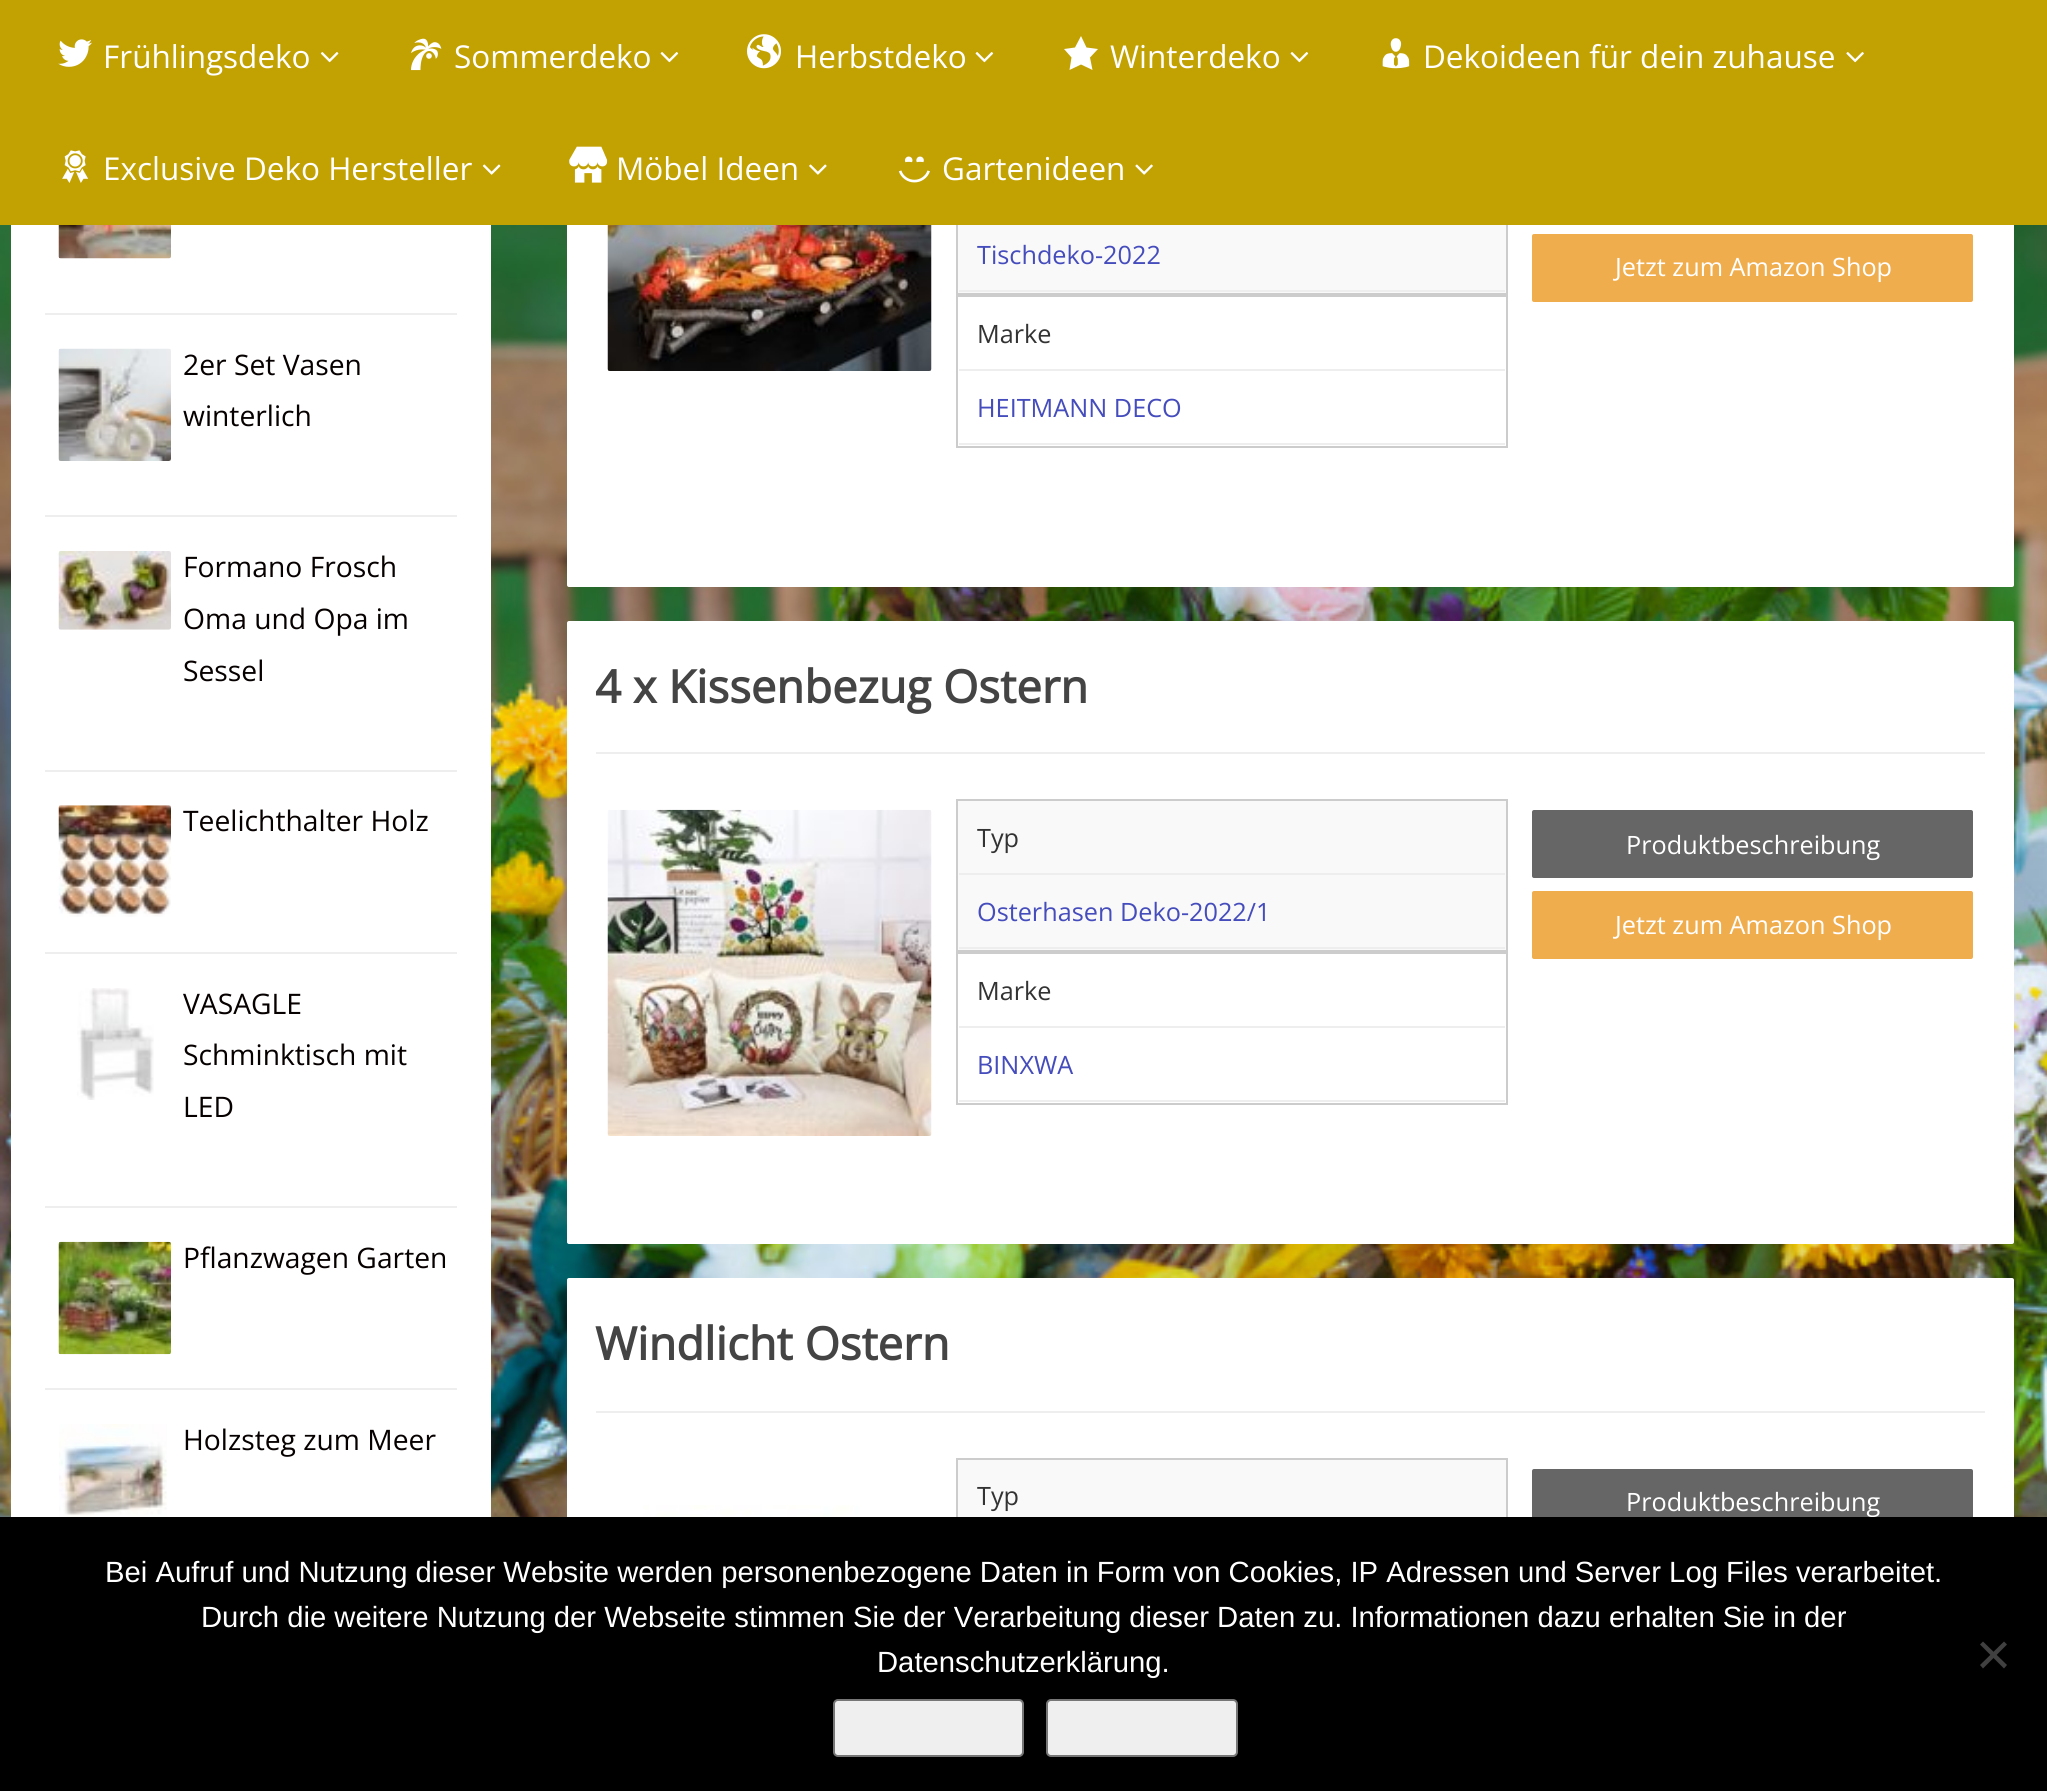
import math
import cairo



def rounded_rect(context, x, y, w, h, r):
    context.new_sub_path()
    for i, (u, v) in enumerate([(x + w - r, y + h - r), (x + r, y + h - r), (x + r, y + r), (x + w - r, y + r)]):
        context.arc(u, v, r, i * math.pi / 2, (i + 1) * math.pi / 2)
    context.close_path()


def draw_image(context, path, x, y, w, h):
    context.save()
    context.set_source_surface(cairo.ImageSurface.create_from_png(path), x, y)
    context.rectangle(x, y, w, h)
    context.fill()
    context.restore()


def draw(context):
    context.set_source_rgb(1, 1, 1)
    context.paint()
    draw_image(context, "images/1.png", 0, 225, 2047, 1292)
    context.set_source_rgb(1, 1, 1)
    rounded_rect(context, 567, -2, 1447, 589, 2)
    context.fill()
    context.set_source_rgb(249 / 255, 249 / 255, 249 / 255)
    context.rectangle(958, 225, 548, 68)
    context.fill()
    context.rectangle(957, 143, 550, 151)
    context.set_source_rgb(204 / 255, 204 / 255, 204 / 255)
    context.stroke()
    context.set_source_rgb(194 / 255, 161 / 255, 2 / 255)
    context.rectangle(0, 0, 2047, 225)
    context.fill()
    draw_image(context, "images/2.png", 58, 39, 34, 28)
    draw_image(context, "images/3.png", 320, 52, 19, 11)
    draw_image(context, "images/4.png", 411, 38, 31, 33)
    draw_image(context, "images/5.png", 660, 52, 19, 11)
    draw_image(context, "images/6.png", 747, 34, 34, 35)
    draw_image(context, "images/5.png", 975, 52, 19, 11)
    context.set_source_rgb(1, 1, 1)
    context.new_path()
    context.move_to(1081, 36)
    context.line_to(1086.5, 47.5)
    context.line_to(1098, 49)
    context.line_to(1090, 57.5)
    context.line_to(1092.5, 70)
    context.line_to(1081, 64.5)
    context.line_to(1069.5, 70)
    context.line_to(1071.5, 57.5)
    context.line_to(1064, 49)
    context.line_to(1075, 47.5)
    context.close_path()
    context.fill()
    draw_image(context, "images/5.png", 1290, 52, 19, 11)
    draw_image(context, "images/7.png", 1382, 38, 28, 31)
    draw_image(context, "images/8.png", 1846, 52, 18, 11)
    draw_image(context, "images/9.png", 62, 150, 27, 33)
    draw_image(context, "images/10.png", 482, 164, 19, 11)
    draw_image(context, "images/11.png", 569, 146, 39, 37)
    draw_image(context, "images/12.png", 809, 164, 18, 11)
    draw_image(context, "images/13.png", 898, 156, 32, 27)
    draw_image(context, "images/14.png", 1135, 164, 18, 11)
    context.rectangle(11, 225, 480, 1292)
    context.fill()
    context.set_source_rgb(238 / 255, 238 / 255, 238 / 255)
    context.rectangle(45, 313, 412, 2)
    context.fill()
    draw_image(context, "images/15.png", 58, 225, 113, 34)
    context.rectangle(45, 515, 412, 2)
    context.fill()
    draw_image(context, "images/16.png", 58, 348, 113, 113)
    context.rectangle(45, 770, 412, 2)
    context.fill()
    draw_image(context, "images/17.png", 58, 551, 113, 79)
    context.rectangle(45, 952, 412, 2)
    context.fill()
    draw_image(context, "images/18.png", 58, 805, 113, 112)
    context.rectangle(45, 1206, 412, 2)
    context.fill()
    draw_image(context, "images/19.png", 77, 988, 77, 112)
    context.rectangle(45, 1388, 412, 2)
    context.fill()
    draw_image(context, "images/20.png", 58, 1241, 113, 114)
    draw_image(context, "images/21.png", 59, 1424, 108, 93)
    draw_image(context, "images/22.png", 607, 225, 325, 146)
    context.rectangle(959, 290, 546, 2)
    context.fill()
    context.rectangle(957, 296, 550, 151)
    context.set_source_rgb(204 / 255, 204 / 255, 204 / 255)
    context.stroke()
    context.set_source_rgb(238 / 255, 238 / 255, 238 / 255)
    context.rectangle(959, 369, 546, 2)
    context.fill()
    context.rectangle(959, 443, 546, 2)
    context.fill()
    context.set_source_rgb(240 / 255, 173 / 255, 78 / 255)
    rounded_rect(context, 1533, 235, 439, 66, 1)
    context.fill_preserve()
    context.stroke()
    context.set_source_rgb(1, 1, 1)
    rounded_rect(context, 567, 621, 1447, 623, 2)
    context.fill()
    context.set_source_rgb(238 / 255, 238 / 255, 238 / 255)
    context.rectangle(596, 752, 1389, 2)
    context.fill()
    draw_image(context, "images/23.png", 607, 809, 325, 327)
    context.set_source_rgb(249 / 255, 249 / 255, 249 / 255)
    context.rectangle(957, 800, 550, 151)
    context.fill_preserve()
    context.set_source_rgb(204 / 255, 204 / 255, 204 / 255)
    context.stroke()
    context.set_source_rgb(238 / 255, 238 / 255, 238 / 255)
    context.rectangle(959, 873, 546, 2)
    context.fill()
    context.rectangle(959, 947, 546, 2)
    context.fill()
    context.rectangle(957, 953, 550, 151)
    context.set_source_rgb(204 / 255, 204 / 255, 204 / 255)
    context.stroke()
    context.set_source_rgb(238 / 255, 238 / 255, 238 / 255)
    context.rectangle(959, 1026, 546, 2)
    context.fill()
    context.rectangle(959, 1100, 546, 2)
    context.fill()
    context.set_source_rgb(102 / 255, 102 / 255, 102 / 255)
    rounded_rect(context, 1533, 811, 439, 66, 1)
    context.fill_preserve()
    context.stroke()
    context.set_source_rgb(240 / 255, 173 / 255, 78 / 255)
    rounded_rect(context, 1533, 892, 439, 66, 1)
    context.fill_preserve()
    context.stroke()
    context.set_source_rgb(1, 1, 1)
    rounded_rect(context, 567, 1278, 1447, 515, 2)
    context.fill()
    context.set_source_rgb(238 / 255, 238 / 255, 238 / 255)
    context.rectangle(596, 1411, 1389, 2)
    context.fill()
    draw_image(context, "images/24.png", 643, 1505, 217, 12)
    context.set_source_rgb(249 / 255, 249 / 255, 249 / 255)
    context.rectangle(958, 1460, 548, 57)
    context.fill()
    context.rectangle(957, 1459, 550, 151)
    context.set_source_rgb(204 / 255, 204 / 255, 204 / 255)
    context.stroke()
    context.set_source_rgb(102 / 255, 102 / 255, 102 / 255)
    rounded_rect(context, 1533, 1470, 439, 66, 1)
    context.fill_preserve()
    context.stroke()
    context.select_font_face("Open Sans")
    context.set_font_size(31.5)
    context.set_source_rgb(1, 1, 1)
    context.move_to(103, 68)
    context.show_text("Frühlingsdeko")
    context.move_to(454, 68)
    context.show_text("Sommerdeko")
    context.move_to(795, 68)
    context.show_text("Herbstdeko")
    context.move_to(1110, 68)
    context.show_text("Winterdeko")
    context.move_to(1423, 68)
    context.show_text("Dekoideen für dein zuhause")
    context.move_to(103, 180)
    context.show_text("Exclusive Deko Hersteller")
    context.move_to(616, 180)
    context.show_text("Möbel Ideen")
    context.move_to(942, 180)
    context.show_text("Gartenideen")
    context.set_font_size(28.25)
    context.set_source_rgb(6 / 255, 0, 0)
    context.move_to(183, 375)
    context.show_text("2er Set Vasen")
    context.move_to(183, 426)
    context.show_text("winterlich")
    context.move_to(183, 577)
    context.show_text("Formano Frosch")
    context.move_to(183, 629)
    context.show_text("Oma und Opa im")
    context.move_to(183, 681)
    context.show_text("Sessel")
    context.move_to(183, 831)
    context.show_text("Teelichthalter Holz")
    context.move_to(183, 1014)
    context.show_text("VASAGLE")
    context.move_to(183, 1065)
    context.show_text("Schminktisch mit")
    context.move_to(183, 1117)
    context.show_text("LED")
    context.move_to(183, 1268)
    context.show_text("Pflanzwagen Garten")
    context.move_to(183, 1450)
    context.show_text("Holzsteg zum Meer")
    context.set_font_size(25.25)
    context.set_source_rgb(69 / 255, 76 / 255, 188 / 255)
    context.move_to(977, 264)
    context.show_text("Tischdeko-2022")
    context.set_source_rgb(51 / 255, 51 / 255, 51 / 255)
    context.move_to(977, 343)
    context.show_text("Marke")
    context.set_source_rgb(69 / 255, 76 / 255, 188 / 255)
    context.move_to(977, 417)
    context.show_text("HEITMANN DECO")
    context.set_source_rgb(1, 1, 1)
    context.move_to(1615, 276)
    context.show_text("Jetzt zum Amazon Shop")
    context.select_font_face("Open Sans", cairo.FontSlant.NORMAL, cairo.FontWeight.BOLD)
    context.set_font_size(45.4)
    context.set_source_rgb(68 / 255, 68 / 255, 68 / 255)
    context.move_to(595, 703)
    context.show_text("4 x Kissenbezug Ostern")
    context.select_font_face("Open Sans")
    context.set_font_size(25.25)
    context.set_source_rgb(51 / 255, 51 / 255, 51 / 255)
    context.move_to(977, 847)
    context.show_text("Typ")
    context.set_source_rgb(69 / 255, 76 / 255, 188 / 255)
    context.move_to(977, 921)
    context.show_text("Osterhasen Deko-2022/1")
    context.set_source_rgb(51 / 255, 51 / 255, 51 / 255)
    context.move_to(977, 1000)
    context.show_text("Marke")
    context.set_source_rgb(69 / 255, 76 / 255, 188 / 255)
    context.move_to(977, 1074)
    context.show_text("BINXWA")
    context.set_source_rgb(1, 1, 1)
    context.move_to(1626, 854)
    context.show_text("Produktbeschreibung")
    context.move_to(1615, 934)
    context.show_text("Jetzt zum Amazon Shop")
    context.select_font_face("Open Sans", cairo.FontSlant.NORMAL, cairo.FontWeight.BOLD)
    context.set_font_size(45.4)
    context.set_source_rgb(68 / 255, 68 / 255, 68 / 255)
    context.move_to(595, 1360)
    context.show_text("Windlicht Ostern")
    context.select_font_face("Open Sans")
    context.set_font_size(25.25)
    context.set_source_rgb(51 / 255, 51 / 255, 51 / 255)
    context.move_to(977, 1505)
    context.show_text("Typ")
    context.set_source_rgb(1, 1, 1)
    context.move_to(1626, 1511)
    context.show_text("Produktbeschreibung")
    context.set_source_rgb(0, 0, 0)
    context.rectangle(0, 1517, 2047, 274)
    context.fill()
    context.select_font_face("Liberation Sans")
    context.set_font_size(29.25)
    context.set_source_rgb(1, 1, 1)
    context.move_to(105, 1582)
    context.show_text("Bei Aufruf und Nutzung dieser Website werden personenbezogene Daten in Form von Cookies, IP Adressen und Server Log Files verarbeitet.")
    context.move_to(201, 1627)
    context.show_text("Durch die weitere Nutzung der Webseite stimmen Sie der Verarbeitung dieser Daten zu. Informationen dazu erhalten Sie in der")
    context.move_to(877, 1672)
    context.show_text("Datenschutzerklärung.")
    context.set_source_rgb(64 / 255, 64 / 255, 64 / 255)
    context.new_path()
    context.move_to(2004, 1641.5)
    context.line_to(2007, 1644.5)
    context.line_to(1983, 1668.5)
    context.line_to(1980, 1665)
    context.close_path()
    context.fill()
    context.new_path()
    context.move_to(1980, 1644.5)
    context.line_to(1983, 1641.5)
    context.line_to(2007, 1665)
    context.line_to(2004, 1668.5)
    context.close_path()
    context.fill()
    context.set_source_rgb(239 / 255, 239 / 255, 239 / 255)
    rounded_rect(context, 834, 1700, 189, 56, 4)
    context.fill_preserve()
    context.set_source_rgb(118 / 255, 118 / 255, 118 / 255)
    context.stroke()
    context.set_source_rgb(239 / 255, 239 / 255, 239 / 255)
    rounded_rect(context, 1047, 1700, 190, 56, 4)
    context.fill_preserve()
    context.set_source_rgb(118 / 255, 118 / 255, 118 / 255)
    context.stroke()


surface = cairo.ImageSurface(cairo.Format.RGB24, 2047, 1791)
context = cairo.Context(surface)
options = cairo.FontOptions()
options.set_hint_metrics(cairo.HintMetrics.OFF)
options.set_hint_style(cairo.HintStyle.NONE)
context.set_font_options(options)
context.set_miter_limit(4)
draw(context)
surface.write_to_png("out.png")
